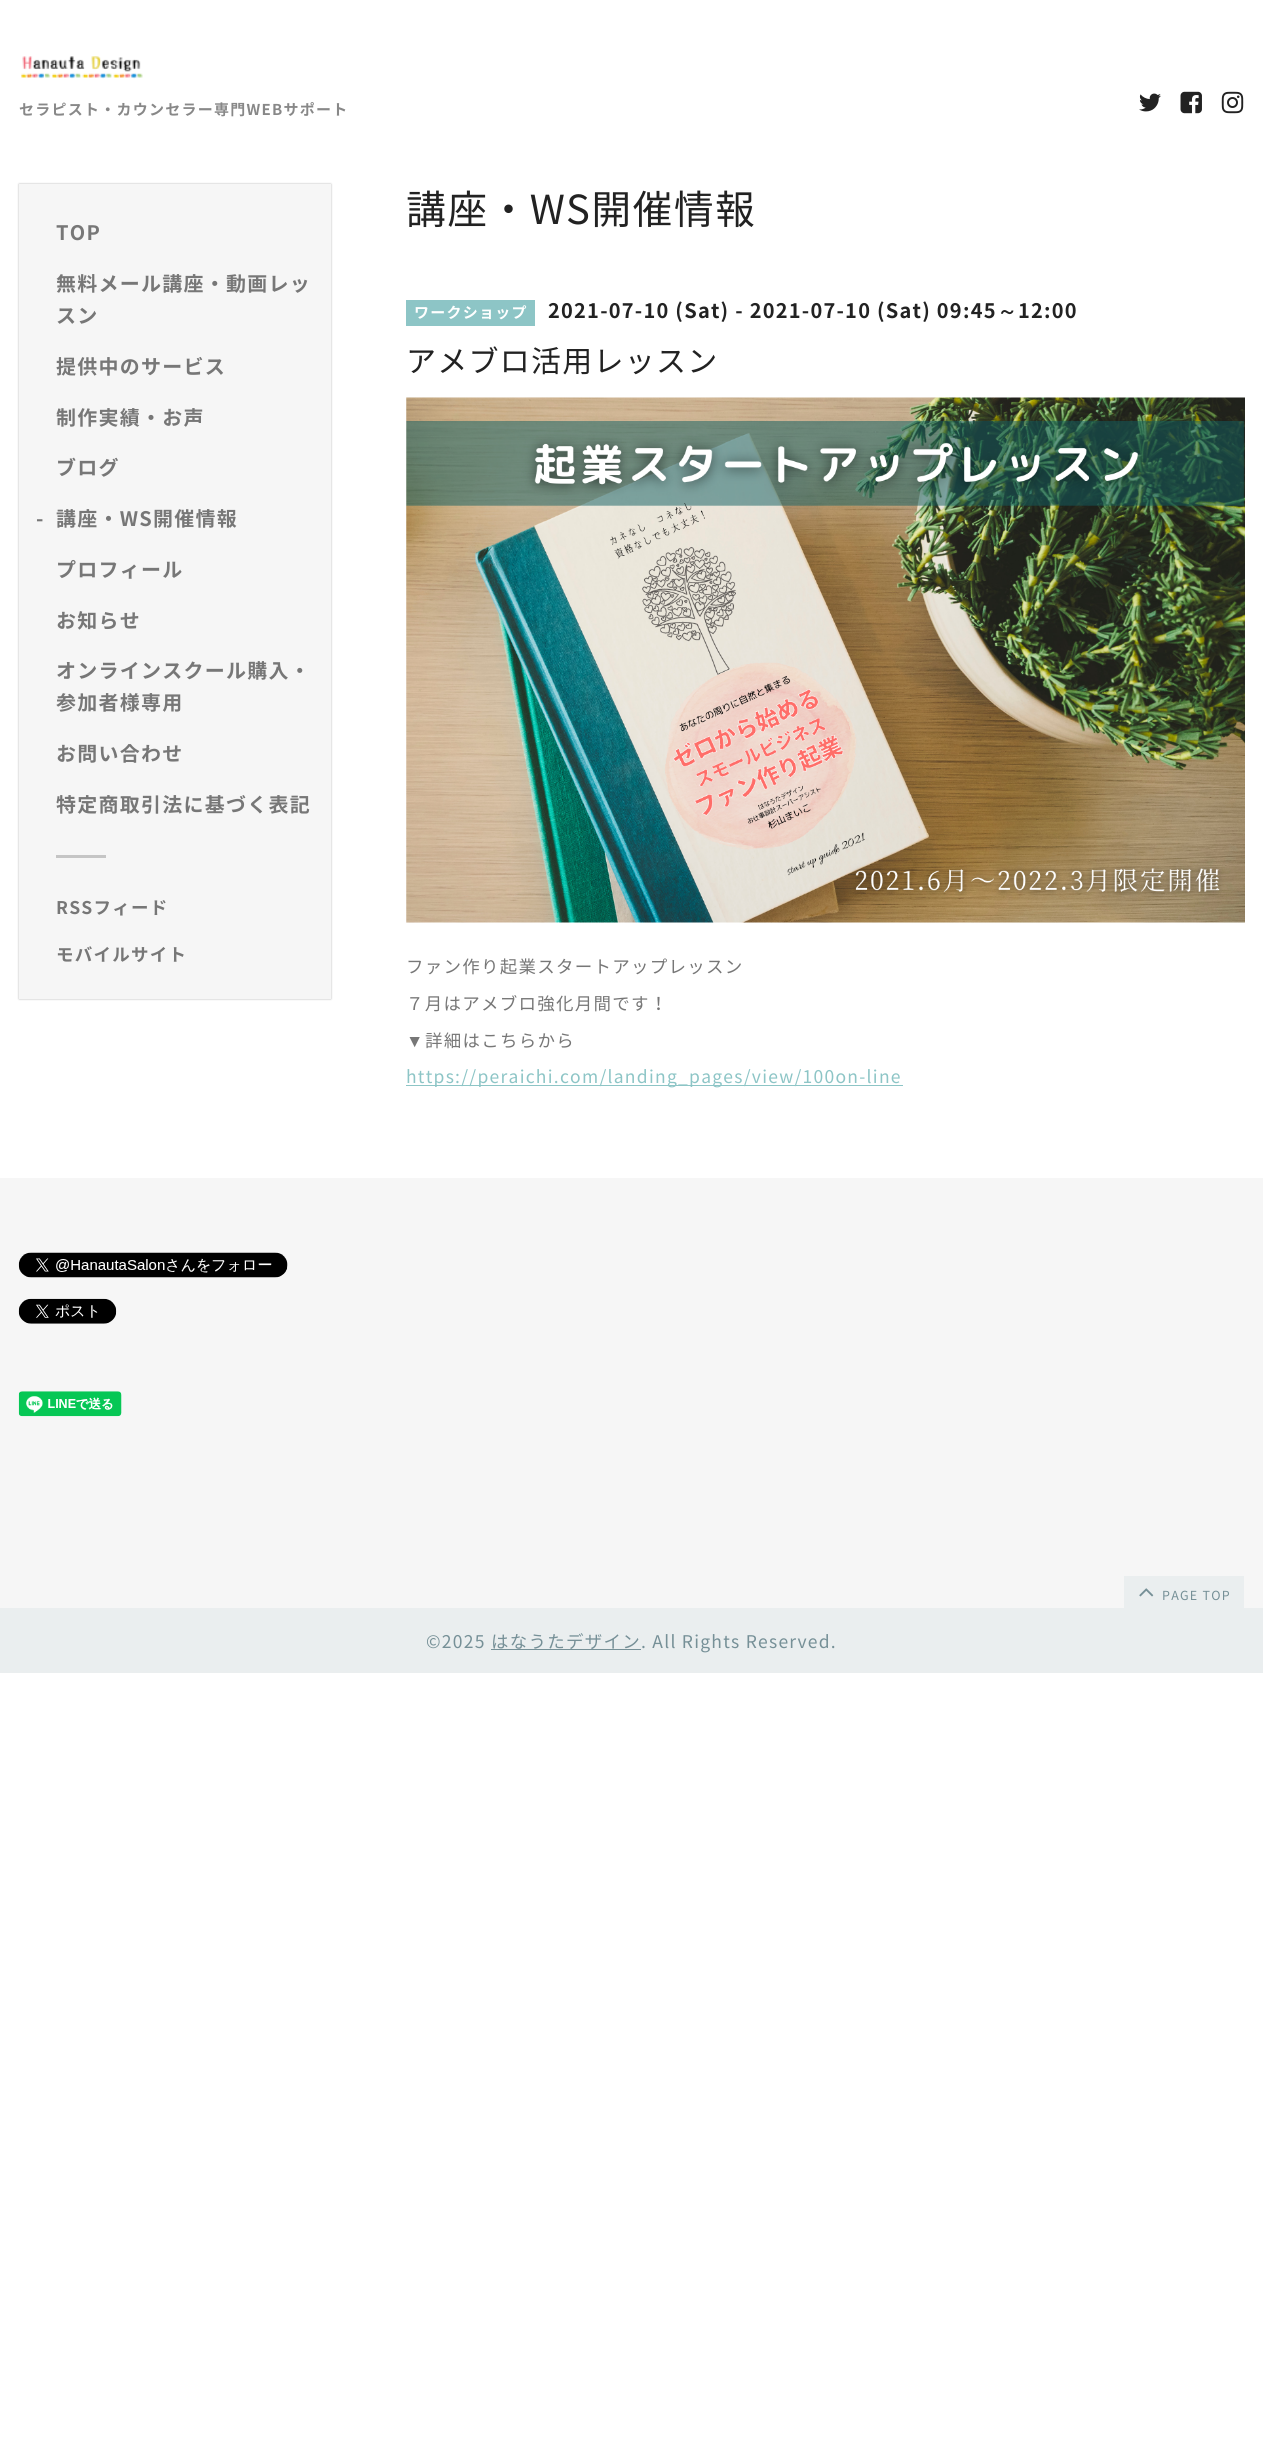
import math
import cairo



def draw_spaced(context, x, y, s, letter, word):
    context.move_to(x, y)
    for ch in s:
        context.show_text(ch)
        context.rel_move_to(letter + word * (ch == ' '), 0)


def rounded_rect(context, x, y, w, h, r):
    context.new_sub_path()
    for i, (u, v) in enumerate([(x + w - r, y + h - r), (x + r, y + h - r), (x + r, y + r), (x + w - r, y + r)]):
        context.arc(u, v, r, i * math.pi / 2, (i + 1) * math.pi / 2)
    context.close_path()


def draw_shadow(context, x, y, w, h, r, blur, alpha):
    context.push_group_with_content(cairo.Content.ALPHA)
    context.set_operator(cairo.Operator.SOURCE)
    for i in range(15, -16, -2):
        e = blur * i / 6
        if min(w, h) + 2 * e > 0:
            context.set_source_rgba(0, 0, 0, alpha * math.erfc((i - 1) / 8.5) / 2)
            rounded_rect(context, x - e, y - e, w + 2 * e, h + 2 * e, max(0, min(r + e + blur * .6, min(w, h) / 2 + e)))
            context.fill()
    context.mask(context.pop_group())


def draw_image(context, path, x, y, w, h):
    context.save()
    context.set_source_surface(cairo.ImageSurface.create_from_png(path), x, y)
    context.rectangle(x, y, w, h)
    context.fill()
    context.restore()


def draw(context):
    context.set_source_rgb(1, 1, 1)
    context.paint()
    draw_image(context, "images/1.png", 21, 56, 122, 23)
    draw_image(context, "images/2.png", 1139, 93, 22, 19)
    draw_image(context, "images/3.png", 1180, 91, 22, 23)
    draw_image(context, "images/4.png", 1221, 91, 23, 23)
    context.set_source_rgb(0, 0, 0)
    draw_shadow(context, 19, 184, 312, 815, 0, 1, 0.3)
    context.set_source_rgb(246 / 255, 246 / 255, 246 / 255)
    context.rectangle(19, 184, 312, 815)
    context.fill()
    context.set_source_rgb(197 / 255, 197 / 255, 197 / 255)
    context.rectangle(56, 855, 50, 3)
    context.fill()
    context.set_source_rgb(141 / 255, 197 / 255, 198 / 255)
    context.rectangle(406, 300, 129, 26)
    context.fill()
    draw_image(context, "images/5.png", 406, 397, 839, 526)
    context.rectangle(406, 1085, 497, 1)
    context.fill()
    context.set_source_rgb(246 / 255, 246 / 255, 246 / 255)
    context.rectangle(0, 1178, 1263, 430)
    context.fill()
    draw_image(context, "images/6.png", 18, 1252, 270, 26)
    draw_image(context, "images/7.png", 18, 1298, 99, 26)
    draw_image(context, "images/8.png", 18, 1391, 104, 26)
    context.set_source_rgb(234 / 255, 238 / 255, 239 / 255)
    context.rectangle(0, 1608, 1263, 65)
    context.fill()
    context.rectangle(1124, 1576, 120, 32)
    context.fill()
    draw_image(context, "images/9.png", 1139, 1588, 15, 9)
    context.set_source_rgb(118 / 255, 144 / 255, 151 / 255)
    context.rectangle(491, 1649, 150, 1)
    context.fill()
    context.select_font_face("Noto Sans JP", cairo.FontSlant.NORMAL, cairo.FontWeight.BOLD)
    context.set_font_size(15)
    context.set_source_rgb(136 / 255, 136 / 255, 136 / 255)
    draw_spaced(context, 19, 115, "セラピスト・カウンセラー専門WEBサポート", 1.25, 0)
    context.set_font_size(20)
    context.set_source_rgb(119 / 255, 119 / 255, 119 / 255)
    draw_spaced(context, 56, 240, "TOP", 1.25, 0)
    draw_spaced(context, 56, 291, "無料メール講座・動画レッ", 1.25, 0)
    draw_spaced(context, 56, 323, "スン", 1.25, 0)
    draw_spaced(context, 56, 374, "提供中のサービス", 1.25, 0)
    draw_spaced(context, 56, 425, "制作実績・お声", 1.25, 0)
    draw_spaced(context, 56, 475, "ブログ", 1.25, 0)
    draw_spaced(context, 36, 526, "-", 1.25, 0)
    draw_spaced(context, 56, 526, "講座・WS開催情報", 1.25, 0)
    draw_spaced(context, 56, 577, "プロフィール", 1.25, 0)
    draw_spaced(context, 56, 628, "お知らせ", 1.25, 0)
    draw_spaced(context, 56, 678, "オンラインスクール購入・", 1.25, 0)
    draw_spaced(context, 56, 710, "参加者様専用", 1.25, 0)
    draw_spaced(context, 56, 761, "お問い合わせ", 1.25, 0)
    draw_spaced(context, 56, 812, "特定商取引法に基づく表記", 1.25, 0)
    context.set_font_size(17.5)
    draw_spaced(context, 56, 914, "RSSフィード", 1.25, 0)
    draw_spaced(context, 56, 961, "モバイルサイト", 1.25, 0)
    context.select_font_face("Noto Sans JP")
    context.set_font_size(40)
    context.set_source_rgb(34 / 255, 34 / 255, 34 / 255)
    draw_spaced(context, 406, 224, "講座・WS開催情報", 1.25, 0)
    context.select_font_face("Noto Sans JP", cairo.FontSlant.NORMAL, cairo.FontWeight.BOLD)
    context.set_font_size(15)
    context.set_source_rgb(1, 1, 1)
    draw_spaced(context, 414, 318, "ワークショップ", 1.25, 0)
    context.set_font_size(20)
    context.set_source_rgb(34 / 255, 34 / 255, 34 / 255)
    draw_spaced(context, 548, 318, "2021-07-10 (Sat) - 2021-07-10 (Sat) 09:45", 1.25, 0)
    context.select_font_face("WenQuanYi Zen Hei", cairo.FontSlant.NORMAL, cairo.FontWeight.BOLD)
    draw_spaced(context, 997, 318, "～", 1.25, 0)
    context.select_font_face("Noto Sans JP", cairo.FontSlant.NORMAL, cairo.FontWeight.BOLD)
    draw_spaced(context, 1018, 318, "12:00", 1.25, 0)
    context.select_font_face("Noto Sans JP")
    context.set_font_size(30)
    draw_spaced(context, 406, 372, "アメブロ活用レッスン", 1.25, 0)
    context.set_font_size(17.5)
    context.set_source_rgb(119 / 255, 119 / 255, 119 / 255)
    draw_spaced(context, 406, 973, "ファン作り起業スタートアップレッスン", 1.25, 0)
    draw_spaced(context, 406, 1010, "７月はアメブロ強化月間です！", 1.25, 0)
    context.select_font_face("Liberation Serif")
    draw_spaced(context, 406, 1047, "▼", 1.25, 0)
    context.select_font_face("Noto Sans JP")
    draw_spaced(context, 425, 1047, "詳細はこちらから", 1.25, 0)
    context.set_source_rgb(141 / 255, 197 / 255, 198 / 255)
    draw_spaced(context, 406, 1083, "https://peraichi.com/landing_pages/view/100on-line", 1.25, 0)
    context.set_font_size(12.5)
    context.set_source_rgb(118 / 255, 144 / 255, 151 / 255)
    draw_spaced(context, 1162, 1600, "PAGE TOP", 1.25, 0)
    context.set_font_size(17.5)
    draw_spaced(context, 426, 1648, "©2025", 1.25, 0)
    draw_spaced(context, 491, 1648, "はなうたデザイン. All Rights Reserved.", 1.25, 0)


surface = cairo.ImageSurface(cairo.Format.RGB24, 1263, 2444)
context = cairo.Context(surface)
options = cairo.FontOptions()
options.set_hint_metrics(cairo.HintMetrics.OFF)
options.set_hint_style(cairo.HintStyle.NONE)
context.set_font_options(options)
context.set_miter_limit(4)
draw(context)
surface.write_to_png("out.png")
